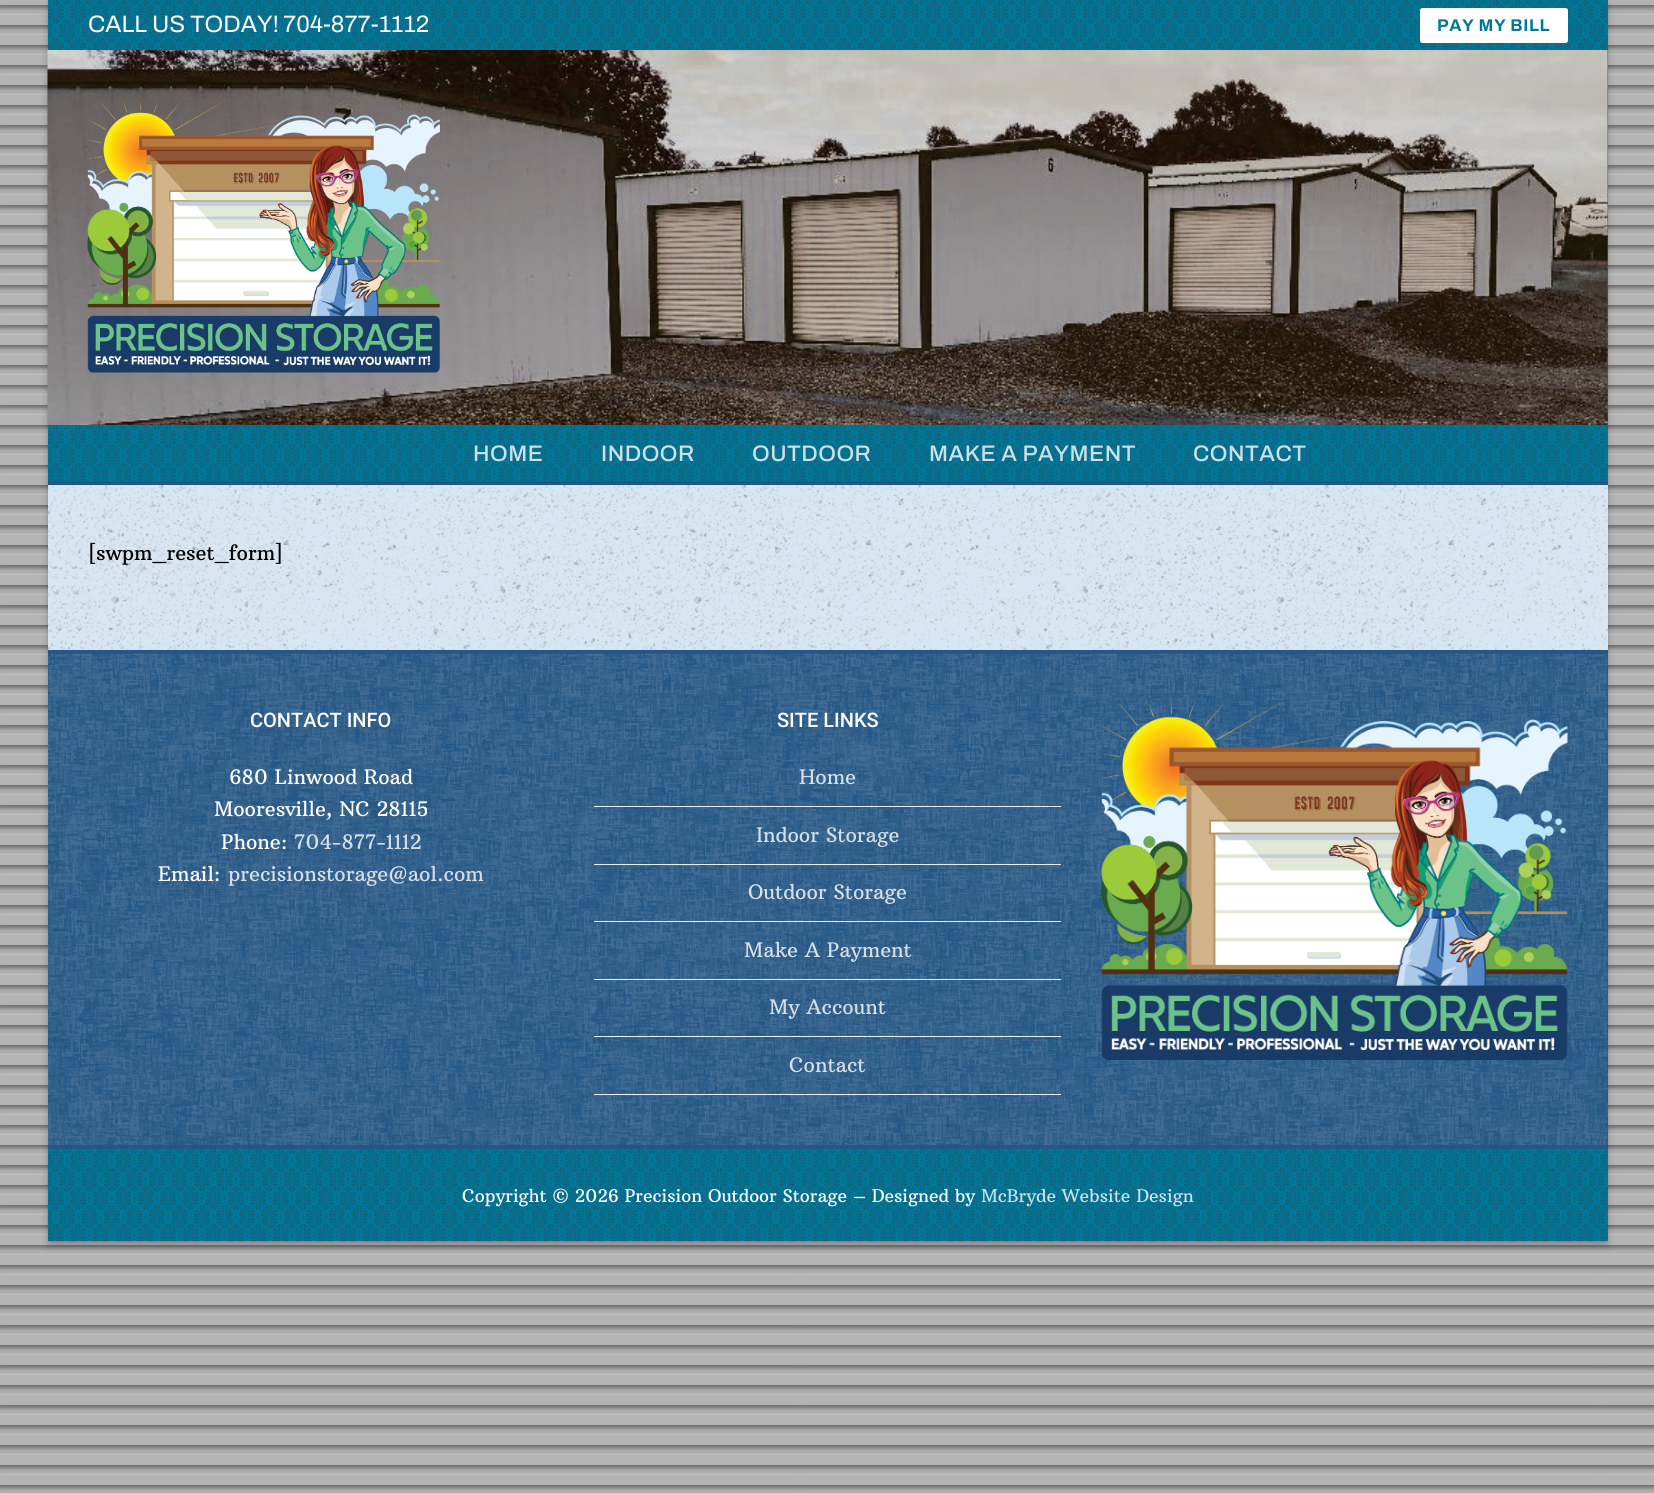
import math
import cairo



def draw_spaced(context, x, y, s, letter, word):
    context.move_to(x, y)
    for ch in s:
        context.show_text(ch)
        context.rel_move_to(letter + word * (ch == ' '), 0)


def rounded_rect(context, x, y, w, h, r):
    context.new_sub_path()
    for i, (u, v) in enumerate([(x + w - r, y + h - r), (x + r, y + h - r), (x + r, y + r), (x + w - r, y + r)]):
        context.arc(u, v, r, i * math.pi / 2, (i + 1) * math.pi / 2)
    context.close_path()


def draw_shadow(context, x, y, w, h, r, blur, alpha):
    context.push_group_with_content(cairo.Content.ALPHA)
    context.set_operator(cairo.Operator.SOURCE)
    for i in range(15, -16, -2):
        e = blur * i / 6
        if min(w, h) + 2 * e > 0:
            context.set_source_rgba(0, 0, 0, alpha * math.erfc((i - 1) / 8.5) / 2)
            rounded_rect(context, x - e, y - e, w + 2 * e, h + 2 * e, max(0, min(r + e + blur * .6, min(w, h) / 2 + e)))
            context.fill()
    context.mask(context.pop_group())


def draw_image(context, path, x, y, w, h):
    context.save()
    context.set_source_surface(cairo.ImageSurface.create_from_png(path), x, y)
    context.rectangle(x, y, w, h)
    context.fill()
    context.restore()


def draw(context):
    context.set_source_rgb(1, 1, 1)
    context.paint()
    draw_image(context, "images/1.png", 0, 0, 1654, 1493)
    context.set_source_rgb(0, 0, 0)
    draw_shadow(context, 48, 4, 1560, 1241, 0, 4, 0.23)
    draw_shadow(context, 53, 9, 1550, 1231, 0, 4, 0.16)
    context.set_source_rgb(0, 120 / 255, 156 / 255)
    context.rectangle(48, 0, 1560, 50)
    context.fill()
    draw_image(context, "images/2.png", 47, 0, 1561, 50)
    context.set_source_rgb(1, 1, 1)
    rounded_rect(context, 1420, 8, 148, 35, 2.5)
    context.fill()
    context.set_source_rgb(0, 120 / 255, 156 / 255)
    context.rectangle(1607, 50, 1, 375)
    context.fill()
    draw_image(context, "images/3.png", 47, 50, 1561, 375)
    draw_image(context, "images/4.png", 87, 102, 353, 271)
    context.rectangle(48, 425, 1560, 56)
    context.fill()
    context.set_source_rgb(216 / 255, 229 / 255, 242 / 255)
    context.rectangle(48, 485, 1560, 165)
    context.fill()
    draw_image(context, "images/6.png", 47, 481, 1561, 172)
    context.set_source_rgb(35 / 255, 87 / 255, 135 / 255)
    context.rectangle(48, 481, 1560, 4)
    context.fill()
    draw_image(context, "images/5.png", 47, 425, 1561, 57)
    context.rectangle(48, 650, 1560, 495)
    context.fill()
    context.set_source_rgb(216 / 255, 229 / 255, 242 / 255)
    context.rectangle(68, 485, 1520, 165)
    context.fill()
    draw_image(context, "images/7.png", 67, 485, 1521, 165)
    draw_image(context, "images/8.png", 47, 653, 1561, 492)
    context.set_source_rgb(234 / 255, 236 / 255, 238 / 255)
    context.rectangle(594, 806, 467, 1)
    context.fill()
    context.rectangle(594, 864, 467, 1)
    context.fill()
    context.rectangle(594, 921, 467, 1)
    context.fill()
    context.rectangle(594, 979, 467, 1)
    context.fill()
    context.rectangle(594, 1036, 467, 1)
    context.fill()
    context.rectangle(594, 1094, 467, 1)
    context.fill()
    draw_image(context, "images/9.png", 1101, 703, 467, 357)
    context.set_source_rgb(0, 120 / 255, 156 / 255)
    context.rectangle(48, 1149, 1560, 92)
    context.fill()
    draw_image(context, "images/10.png", 47, 1146, 1561, 96)
    context.set_source_rgb(35 / 255, 87 / 255, 135 / 255)
    context.rectangle(48, 1145, 1560, 4)
    context.fill()
    context.select_font_face("Archivo")
    context.set_font_size(23.75)
    context.set_source_rgb(253 / 255, 254 / 255, 254 / 255)
    context.move_to(88, 32)
    context.show_text("CALL US TODAY!")
    context.move_to(283, 32)
    context.show_text("704-877-1112")
    context.select_font_face("Archivo", cairo.FontSlant.NORMAL, cairo.FontWeight.BOLD)
    context.set_font_size(17)
    context.set_source_rgb(0, 120 / 255, 156 / 255)
    draw_spaced(context, 1437, 31, "PAY MY BILL", 0.6, 0)
    context.select_font_face("Archivo Medium")
    context.set_font_size(22.5)
    context.set_source_rgb(203 / 255, 225 / 255, 231 / 255)
    draw_spaced(context, 473, 461, "HOME", 0.5, 0)
    draw_spaced(context, 601, 461, "INDOOR", 0.5, 0)
    draw_spaced(context, 752, 461, "OUTDOOR", 0.5, 0)
    draw_spaced(context, 929, 461, "MAKE A PAYMENT", 0.5, 0)
    draw_spaced(context, 1193, 461, "CONTACT", 0.5, 0)
    context.select_font_face("Arbutus Slab")
    context.set_font_size(20)
    context.set_source_rgb(0, 0, 0)
    context.move_to(88, 560)
    context.show_text("[swpm_reset_form]")
    context.select_font_face("Roboto Medium")
    context.set_source_rgb(253 / 255, 254 / 255, 254 / 255)
    context.move_to(250, 727)
    context.show_text("CONTACT INFO")
    context.select_font_face("Arbutus Slab")
    context.move_to(229, 784)
    context.show_text("680 Linwood Road")
    context.move_to(214, 816)
    context.show_text("Mooresville, NC 28115")
    context.move_to(221, 849)
    context.show_text("Phone:")
    context.set_source_rgb(212 / 255, 222 / 255, 231 / 255)
    context.move_to(294, 849)
    context.show_text("704-877-1112")
    context.set_source_rgb(253 / 255, 254 / 255, 254 / 255)
    context.move_to(158, 881)
    context.show_text("Email:")
    context.set_source_rgb(212 / 255, 222 / 255, 231 / 255)
    context.move_to(228, 881)
    context.show_text("precisionstorage@aol.com")
    context.select_font_face("Roboto Medium")
    context.set_source_rgb(253 / 255, 254 / 255, 254 / 255)
    context.move_to(777, 727)
    context.show_text("SITE LINKS")
    context.select_font_face("Arbutus Slab")
    context.set_source_rgb(212 / 255, 222 / 255, 231 / 255)
    context.move_to(799, 784)
    context.show_text("Home")
    context.move_to(756, 842)
    context.show_text("Indoor Storage")
    context.move_to(748, 899)
    context.show_text("Outdoor Storage")
    context.move_to(744, 957)
    context.show_text("Make A Payment")
    context.move_to(769, 1014)
    context.show_text("My Account")
    context.move_to(789, 1072)
    context.show_text("Contact")
    context.set_font_size(17.5)
    context.set_source_rgb(253 / 255, 254 / 255, 254 / 255)
    context.move_to(462, 1202)
    context.show_text("Copyright © 2026 Precision Outdoor Storage – Designed by")
    context.set_source_rgb(203 / 255, 225 / 255, 231 / 255)
    context.move_to(981, 1202)
    context.show_text("McBryde Website Design")


surface = cairo.ImageSurface(cairo.Format.RGB24, 1654, 1493)
context = cairo.Context(surface)
options = cairo.FontOptions()
options.set_hint_metrics(cairo.HintMetrics.OFF)
options.set_hint_style(cairo.HintStyle.NONE)
context.set_font_options(options)
context.set_miter_limit(4)
draw(context)
surface.write_to_png("out.png")
